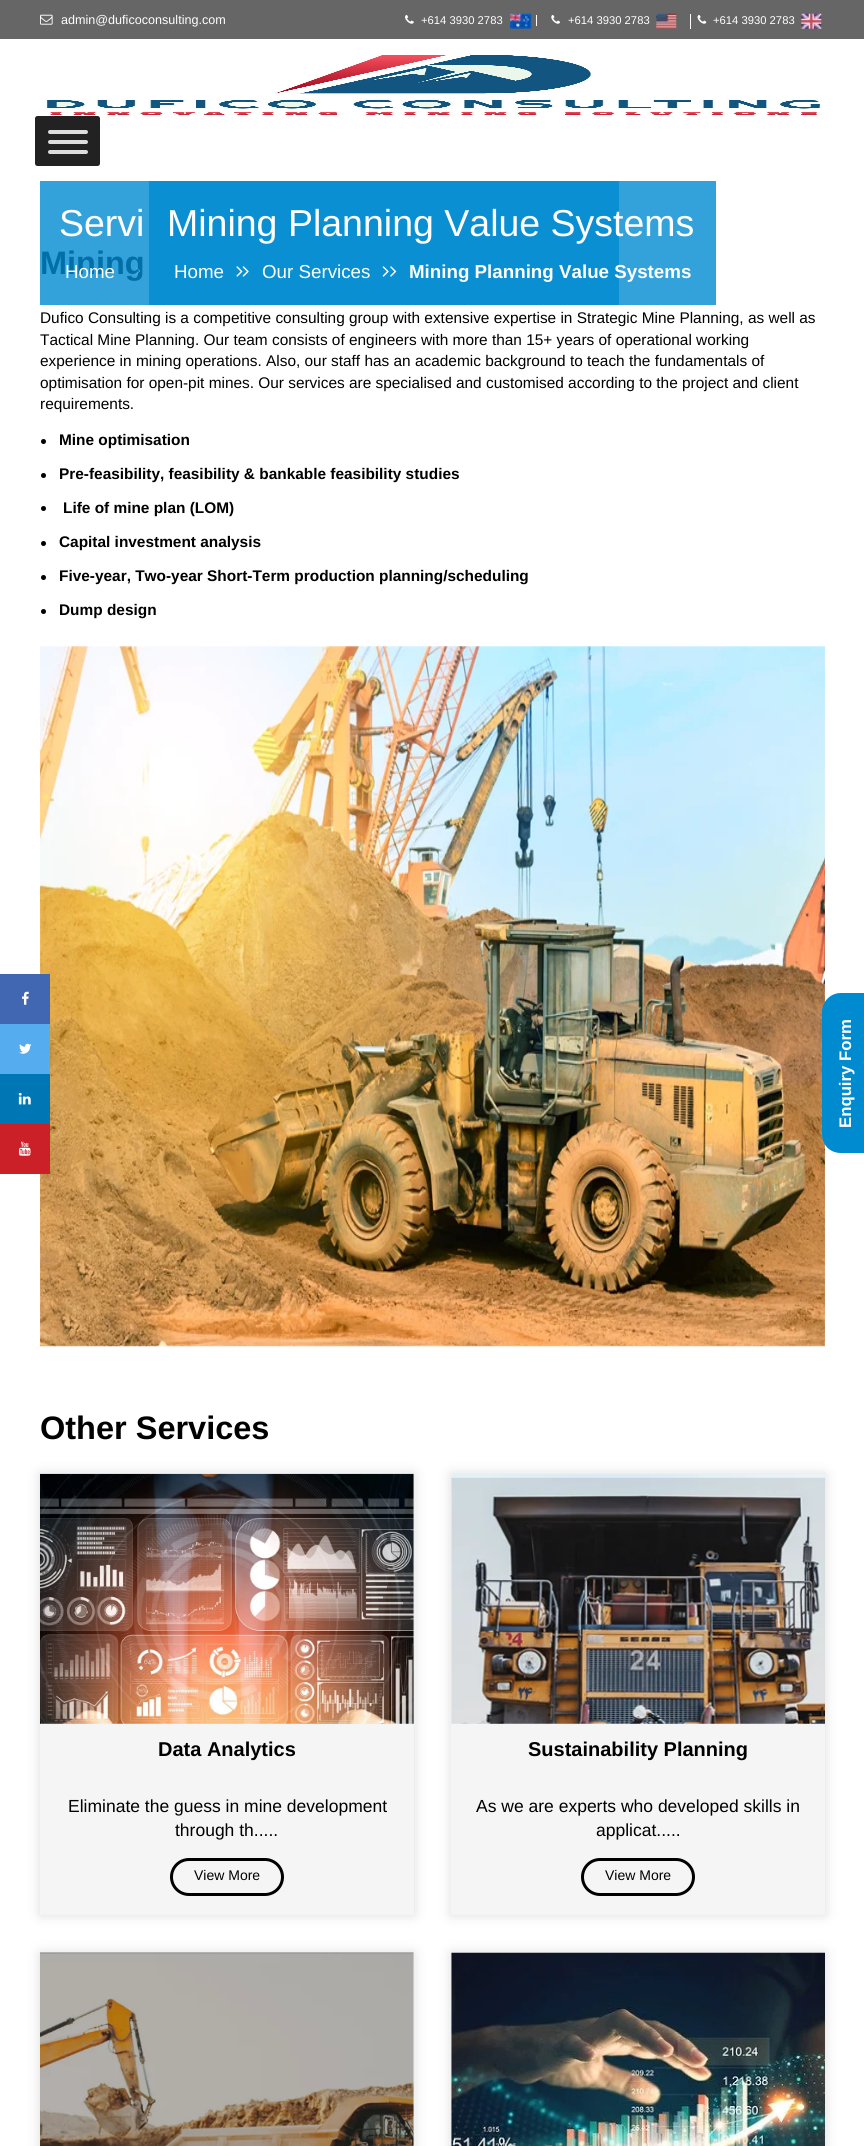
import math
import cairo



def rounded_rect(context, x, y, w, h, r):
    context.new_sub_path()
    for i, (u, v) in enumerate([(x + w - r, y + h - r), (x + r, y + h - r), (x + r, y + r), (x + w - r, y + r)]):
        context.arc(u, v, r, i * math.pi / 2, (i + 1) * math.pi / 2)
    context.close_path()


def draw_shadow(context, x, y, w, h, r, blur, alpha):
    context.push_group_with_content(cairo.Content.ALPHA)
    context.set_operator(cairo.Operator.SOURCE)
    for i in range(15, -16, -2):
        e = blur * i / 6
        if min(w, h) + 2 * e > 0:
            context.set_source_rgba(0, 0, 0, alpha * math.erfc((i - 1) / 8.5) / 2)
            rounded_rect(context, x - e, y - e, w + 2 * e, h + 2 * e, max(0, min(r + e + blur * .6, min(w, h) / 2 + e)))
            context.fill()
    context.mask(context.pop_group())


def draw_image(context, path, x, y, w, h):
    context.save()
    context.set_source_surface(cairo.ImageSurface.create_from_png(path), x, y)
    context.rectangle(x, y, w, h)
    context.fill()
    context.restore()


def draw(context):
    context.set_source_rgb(1, 1, 1)
    context.paint()
    context.set_source_rgb(51 / 255, 162 / 255, 218 / 255)
    context.rectangle(40, 181, 579, 124)
    context.fill()
    context.set_source_rgb(102 / 255, 102 / 255, 102 / 255)
    context.rectangle(0, 0, 864, 39)
    context.fill()
    draw_image(context, "images/1.png", 40, 14, 13, 11)
    draw_image(context, "images/2.png", 405, 15, 9, 9)
    draw_image(context, "images/3.png", 510, 13, 22, 16)
    context.set_source_rgb(1, 1, 1)
    context.rectangle(536, 15, 1, 11)
    context.fill()
    context.rectangle(690, 14, 1, 15)
    context.fill()
    draw_image(context, "images/4.png", 551, 15, 9, 9)
    draw_image(context, "images/5.png", 656, 13, 21, 16)
    draw_image(context, "images/6.png", 697, 15, 10, 9)
    draw_image(context, "images/7.png", 801, 13, 21, 16)
    draw_image(context, "images/8.png", 45, 54, 777, 62)
    context.set_source_rgb(34 / 255, 34 / 255, 34 / 255)
    rounded_rect(context, 35, 116, 65, 50, 2.5)
    context.fill()
    context.set_source_rgb(221 / 255, 221 / 255, 221 / 255)
    rounded_rect(context, 48, 130, 40, 4, 2)
    context.fill()
    rounded_rect(context, 48, 140, 40, 4, 2)
    context.fill()
    rounded_rect(context, 48, 150, 40, 4, 2)
    context.fill()
    draw_image(context, "images/17.png", 40, 646, 785, 701)
    context.set_source_rgb(66 / 255, 103 / 255, 178 / 255)
    context.rectangle(0, 974, 50, 50)
    context.fill()
    draw_image(context, "images/9.png", 22, 991, 7, 14)
    context.set_source_rgb(85 / 255, 172 / 255, 238 / 255)
    context.rectangle(0, 1024, 50, 50)
    context.fill()
    draw_image(context, "images/10.png", 19, 1043, 13, 11)
    context.set_source_rgb(0, 119 / 255, 181 / 255)
    context.rectangle(0, 1074, 50, 50)
    context.fill()
    draw_image(context, "images/11.png", 18, 1092, 13, 13)
    context.set_source_rgb(203 / 255, 32 / 255, 39 / 255)
    context.rectangle(0, 1124, 50, 50)
    context.fill()
    draw_image(context, "images/12.png", 19, 1141, 12, 15)
    context.set_source_rgb(1, 1, 1)
    context.new_path()
    context.move_to(286.5, 276.5)
    context.line_to(292, 271)
    context.line_to(286.5, 265.5)
    context.line_to(292.5, 271)
    context.close_path()
    context.fill()
    context.set_source_rgba(0, 139 / 255, 209 / 255, 0.8)
    context.rectangle(149, 181, 567, 124)
    context.fill()
    draw_image(context, "images/13.png", 236, 266, 7, 11)
    draw_image(context, "images/14.png", 242, 266, 7, 11)
    draw_image(context, "images/15.png", 382, 266, 7, 11)
    draw_image(context, "images/16.png", 390, 266, 7, 11)
    context.set_source_rgb(0, 0, 0)
    context.arc(43.5, 441.5, 2.5, 0, 2 * math.pi)
    context.fill()
    context.arc(43.5, 475.5, 2.5, 0, 2 * math.pi)
    context.fill()
    context.arc(43.5, 508.5, 2.5, 0, 2 * math.pi)
    context.fill()
    context.arc(43.5, 543.5, 2.5, 0, 2 * math.pi)
    context.fill()
    context.arc(43.5, 577.5, 2.5, 0, 2 * math.pi)
    context.fill()
    context.arc(43.5, 611.5, 2.5, 0, 2 * math.pi)
    context.fill()
    context.set_source_rgb(221 / 255, 221 / 255, 221 / 255)
    draw_shadow(context, 40, 1474, 374, 441, 0, 6, 1)
    context.set_source_rgb(245 / 255, 245 / 255, 245 / 255)
    context.rectangle(40, 1474, 374, 441)
    context.fill()
    draw_image(context, "images/18.png", 40, 1473, 374, 251)
    rounded_rect(context, 171.5, 1859.5, 111, 35, 17.5)
    context.set_source_rgb(0, 0, 0)
    context.set_line_width(3)
    context.stroke()
    context.set_source_rgb(221 / 255, 221 / 255, 221 / 255)
    draw_shadow(context, 451, 1474, 374, 441, 0, 6, 1)
    context.set_source_rgb(245 / 255, 245 / 255, 245 / 255)
    context.rectangle(451, 1474, 374, 441)
    context.fill()
    draw_image(context, "images/19.png", 451, 1474, 374, 250)
    rounded_rect(context, 582.5, 1859.5, 111, 35, 17.5)
    context.set_source_rgb(0, 0, 0)
    context.stroke()
    context.set_source_rgb(221 / 255, 221 / 255, 221 / 255)
    draw_shadow(context, 40, 1953, 374, 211, 0, 6, 1)
    context.set_source_rgb(245 / 255, 245 / 255, 245 / 255)
    context.rectangle(413, 1953, 1, 193)
    context.fill()
    draw_image(context, "images/20.png", 40, 1952, 374, 194)
    context.set_source_rgb(221 / 255, 221 / 255, 221 / 255)
    draw_shadow(context, 451, 1953, 374, 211, 0, 6, 1)
    context.set_source_rgb(245 / 255, 245 / 255, 245 / 255)
    context.rectangle(451, 1953, 1, 193)
    context.fill()
    draw_image(context, "images/21.png", 451, 1952, 374, 194)
    context.set_source_rgb(0, 139 / 255, 209 / 255)
    context.new_path()
    context.move_to(822, 1134)
    context.line_to(822, 1012)
    context.curve_to(822, 1002, 830, 993, 841, 993)
    context.line_to(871, 993)
    context.line_to(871, 1153)
    context.line_to(841, 1153)
    context.curve_to(830, 1153, 822, 1145, 822, 1134)
    context.close_path()
    context.fill()
    context.select_font_face("Liberation Sans")
    context.set_font_size(12.6)
    context.set_source_rgb(1, 1, 1)
    context.move_to(61, 24)
    context.show_text("admin@duficoconsulting.com")
    context.set_font_size(11.25)
    context.move_to(421, 24)
    context.show_text("+614 3930 2783")
    context.move_to(568, 24)
    context.show_text("+614 3930 2783")
    context.move_to(713, 24)
    context.show_text("+614 3930 2783")
    context.set_font_size(37.5)
    context.move_to(59, 236)
    context.show_text("Servi")
    context.move_to(167, 236)
    context.show_text("Mining Planning Value Systems")
    context.set_font_size(18.75)
    context.move_to(174, 278)
    context.show_text("Home")
    context.move_to(262, 278)
    context.show_text("Our Services")
    context.select_font_face("Liberation Sans", cairo.FontSlant.NORMAL, cairo.FontWeight.BOLD)
    context.move_to(409, 278)
    context.show_text("Mining Planning Value Systems")
    context.set_font_size(32.5)
    context.set_source_rgb(0, 111 / 255, 167 / 255)
    context.move_to(40, 274)
    context.show_text("Mining")
    context.set_source_rgb(1, 1, 1)
    context.new_path()
    context.move_to(134, 276.5)
    context.line_to(139.5, 271)
    context.line_to(134, 265.5)
    context.line_to(140, 271)
    context.close_path()
    context.fill()
    context.select_font_face("Liberation Sans")
    context.set_font_size(18.75)
    context.move_to(65, 278)
    context.show_text("Home")
    context.set_font_size(15.4)
    context.set_source_rgb(0, 0, 0)
    context.move_to(40, 323)
    context.show_text("Dufico Consulting is a competitive consulting group with extensive expertise in Strategic Mine Planning, as well as")
    context.move_to(40, 345)
    context.show_text("Tactical Mine Planning. Our team consists of engineers with more than 15+ years of operational working")
    context.move_to(40, 366)
    context.show_text("experience in mining operations. Also, our staff has an academic background to teach the fundamentals of")
    context.move_to(40, 388)
    context.show_text("optimisation for open-pit mines. Our services are specialised and customised according to the project and client")
    context.move_to(40, 409)
    context.show_text("requirements.")
    context.select_font_face("Liberation Sans", cairo.FontSlant.NORMAL, cairo.FontWeight.BOLD)
    context.move_to(59, 445)
    context.show_text("Mine optimisation")
    context.move_to(59, 479)
    context.show_text("Pre-feasibility, feasibility & bankable feasibility studies")
    context.move_to(63, 513)
    context.show_text("Life of mine plan (LOM)")
    context.move_to(59, 547)
    context.show_text("Capital investment analysis")
    context.move_to(59, 581)
    context.show_text("Five-year, Two-year Short-Term production planning/scheduling")
    context.move_to(59, 615)
    context.show_text("Dump design")
    context.set_font_size(32.5)
    context.move_to(40, 1439)
    context.show_text("Other Services")
    context.set_font_size(20)
    context.move_to(158, 1756)
    context.show_text("Data Analytics")
    context.select_font_face("Liberation Sans")
    context.set_font_size(17.5)
    context.move_to(68, 1812)
    context.show_text("Eliminate the guess in mine development")
    context.move_to(175, 1836)
    context.show_text("through th.....")
    context.set_font_size(14)
    context.move_to(194, 1880)
    context.show_text("View More")
    context.select_font_face("Liberation Sans", cairo.FontSlant.NORMAL, cairo.FontWeight.BOLD)
    context.set_font_size(20)
    context.move_to(528, 1756)
    context.show_text("Sustainability Planning")
    context.select_font_face("Liberation Sans")
    context.set_font_size(17.5)
    context.move_to(476, 1812)
    context.show_text("As we are experts who developed skills in")
    context.move_to(596, 1836)
    context.show_text("applicat.....")
    context.set_font_size(14)
    context.move_to(605, 1880)
    context.show_text("View More")
    context.select_font_face("Liberation Sans", cairo.FontSlant.NORMAL, cairo.FontWeight.BOLD)
    context.set_font_size(16.75)
    context.set_source_rgb(1, 1, 1)
    context.save()
    context.translate(851, 1128)
    context.rotate(-90 * math.pi / 180)
    context.move_to(0, 0)
    context.show_text("Enquiry Form")
    context.restore()


surface = cairo.ImageSurface(cairo.Format.RGB24, 864, 2146)
context = cairo.Context(surface)
options = cairo.FontOptions()
options.set_hint_metrics(cairo.HintMetrics.OFF)
options.set_hint_style(cairo.HintStyle.NONE)
context.set_font_options(options)
context.set_miter_limit(4)
draw(context)
surface.write_to_png("out.png")
